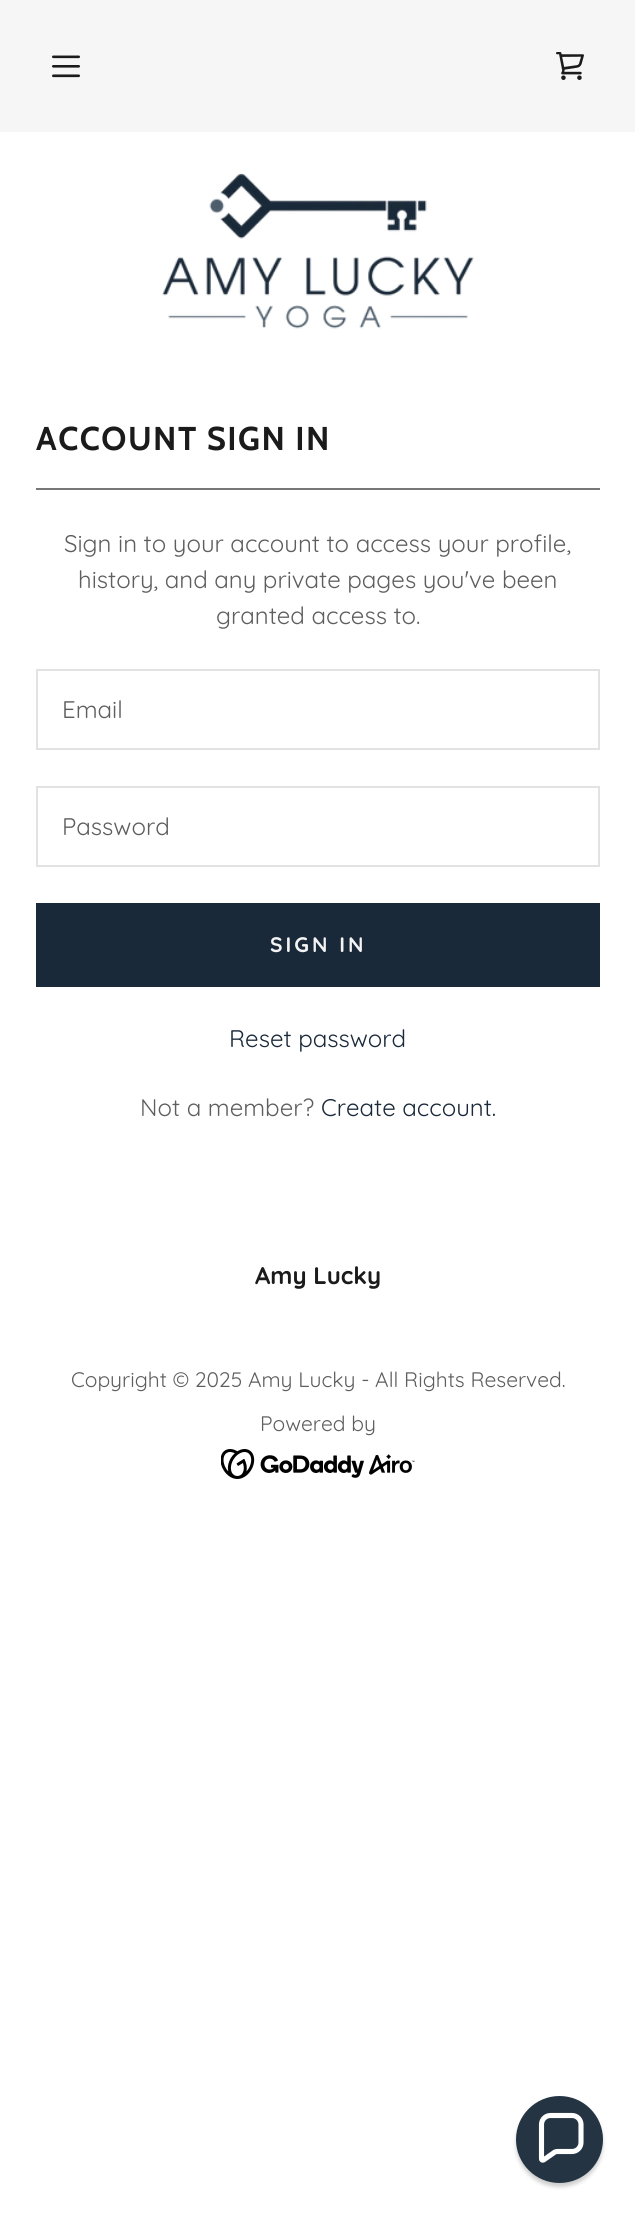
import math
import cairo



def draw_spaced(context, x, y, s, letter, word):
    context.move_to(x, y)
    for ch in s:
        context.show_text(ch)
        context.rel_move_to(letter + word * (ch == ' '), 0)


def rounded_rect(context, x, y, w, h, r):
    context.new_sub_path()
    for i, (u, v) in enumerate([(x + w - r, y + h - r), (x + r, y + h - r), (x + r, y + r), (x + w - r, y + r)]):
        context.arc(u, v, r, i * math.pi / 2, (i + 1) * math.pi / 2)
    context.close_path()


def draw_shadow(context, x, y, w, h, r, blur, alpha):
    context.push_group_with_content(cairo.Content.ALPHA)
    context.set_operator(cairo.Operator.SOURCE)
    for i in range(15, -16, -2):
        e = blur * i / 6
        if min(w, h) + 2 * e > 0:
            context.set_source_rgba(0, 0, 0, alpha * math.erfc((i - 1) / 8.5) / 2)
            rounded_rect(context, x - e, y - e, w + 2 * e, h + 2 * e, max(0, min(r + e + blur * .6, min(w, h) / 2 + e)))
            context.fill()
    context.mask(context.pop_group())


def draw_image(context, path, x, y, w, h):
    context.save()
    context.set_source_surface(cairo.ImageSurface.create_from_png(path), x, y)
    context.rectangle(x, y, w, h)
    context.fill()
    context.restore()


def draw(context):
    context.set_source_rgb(1, 1, 1)
    context.paint()
    context.set_source_rgb(246 / 255, 246 / 255, 246 / 255)
    context.rectangle(0, 0, 635, 132)
    context.fill()
    draw_image(context, "images/1.png", 52, 55, 28, 23)
    draw_image(context, "images/2.png", 556, 52, 28, 28)
    draw_image(context, "images/3.png", 162, 173, 312, 156)
    context.set_source_rgb(119 / 255, 119 / 255, 119 / 255)
    context.rectangle(36, 488, 564, 2)
    context.fill()
    context.rectangle(37, 670, 562, 79)
    context.set_source_rgb(226 / 255, 226 / 255, 226 / 255)
    context.stroke()
    context.rectangle(37, 787, 562, 79)
    context.stroke()
    context.set_source_rgb(26 / 255, 41 / 255, 57 / 255)
    context.rectangle(36, 903, 564, 84)
    context.fill()
    draw_image(context, "images/4.png", 221, 1449, 194, 30)
    context.set_source_rgb(13 / 255, 13 / 255, 13 / 255)
    draw_shadow(context, 516, 2100, 87, 87, 43.5, 2, 0.2)
    context.set_source_rgb(37 / 255, 52 / 255, 67 / 255)
    context.arc(559.5, 2139.5, 43.5, 0, 2 * math.pi)
    context.fill()
    context.new_path()
    context.move_to(572, 2115.5)
    context.line_to(550.5, 2115.5)
    context.curve_to(545.5, 2115.5, 541.5, 2119.5, 541.5, 2124.5)
    context.line_to(541.5, 2159)
    context.curve_to(541.5, 2160, 542.5, 2160.5, 543.5, 2160)
    context.line_to(553.5, 2153)
    context.curve_to(554.5, 2152, 556, 2151.5, 557.5, 2151.5)
    context.line_to(572, 2151.5)
    context.curve_to(577, 2151.5, 581, 2147.5, 581, 2142.5)
    context.line_to(581, 2124.5)
    context.curve_to(581, 2119.5, 577, 2115.5, 572, 2115.5)
    context.close_path()
    context.set_source_rgb(1, 1, 1)
    context.set_line_width(5.1)
    context.stroke()
    context.select_font_face("Cabin", cairo.FontSlant.NORMAL, cairo.FontWeight.BOLD)
    context.set_font_size(33)
    context.set_source_rgb(27 / 255, 27 / 255, 27 / 255)
    draw_spaced(context, 36, 450, "ACCOUNT SIGN IN", 1.5, 0)
    context.select_font_face("Quicksand")
    context.set_font_size(24)
    context.set_source_rgb(94 / 255, 94 / 255, 94 / 255)
    context.move_to(64, 552)
    context.show_text("Sign in to your account to access your profile,")
    context.move_to(78, 588)
    context.show_text("history, and any private pages you've been")
    context.move_to(216, 624)
    context.show_text("granted access to.")
    context.move_to(62, 718)
    context.show_text("Email")
    context.move_to(62, 835)
    context.show_text("Password")
    context.select_font_face("Quicksand", cairo.FontSlant.NORMAL, cairo.FontWeight.BOLD)
    context.set_font_size(21)
    context.set_source_rgb(243 / 255, 243 / 255, 244 / 255)
    draw_spaced(context, 270, 952, "SIGN IN", 3, 0)
    context.select_font_face("Quicksand")
    context.set_font_size(24)
    context.set_source_rgb(26 / 255, 41 / 255, 57 / 255)
    context.move_to(229, 1047)
    context.show_text("Reset password")
    context.set_source_rgb(94 / 255, 94 / 255, 94 / 255)
    context.move_to(140, 1116)
    context.show_text("Not a member?")
    context.set_source_rgb(26 / 255, 41 / 255, 57 / 255)
    context.move_to(321, 1116)
    context.show_text("Create account.")
    context.select_font_face("Quicksand", cairo.FontSlant.NORMAL, cairo.FontWeight.BOLD)
    context.set_source_rgb(27 / 255, 27 / 255, 27 / 255)
    context.move_to(255, 1284)
    context.show_text("Amy Lucky")
    context.select_font_face("Quicksand")
    context.set_font_size(21)
    context.set_source_rgb(94 / 255, 94 / 255, 94 / 255)
    context.move_to(71, 1387)
    context.show_text("Copyright © 2025 Amy Lucky - All Rights Reserved.")
    context.move_to(260, 1431)
    context.show_text("Powered by")


surface = cairo.ImageSurface(cairo.Format.RGB24, 635, 2215)
context = cairo.Context(surface)
options = cairo.FontOptions()
options.set_hint_metrics(cairo.HintMetrics.OFF)
options.set_hint_style(cairo.HintStyle.NONE)
context.set_font_options(options)
context.set_miter_limit(4)
draw(context)
surface.write_to_png("out.png")
